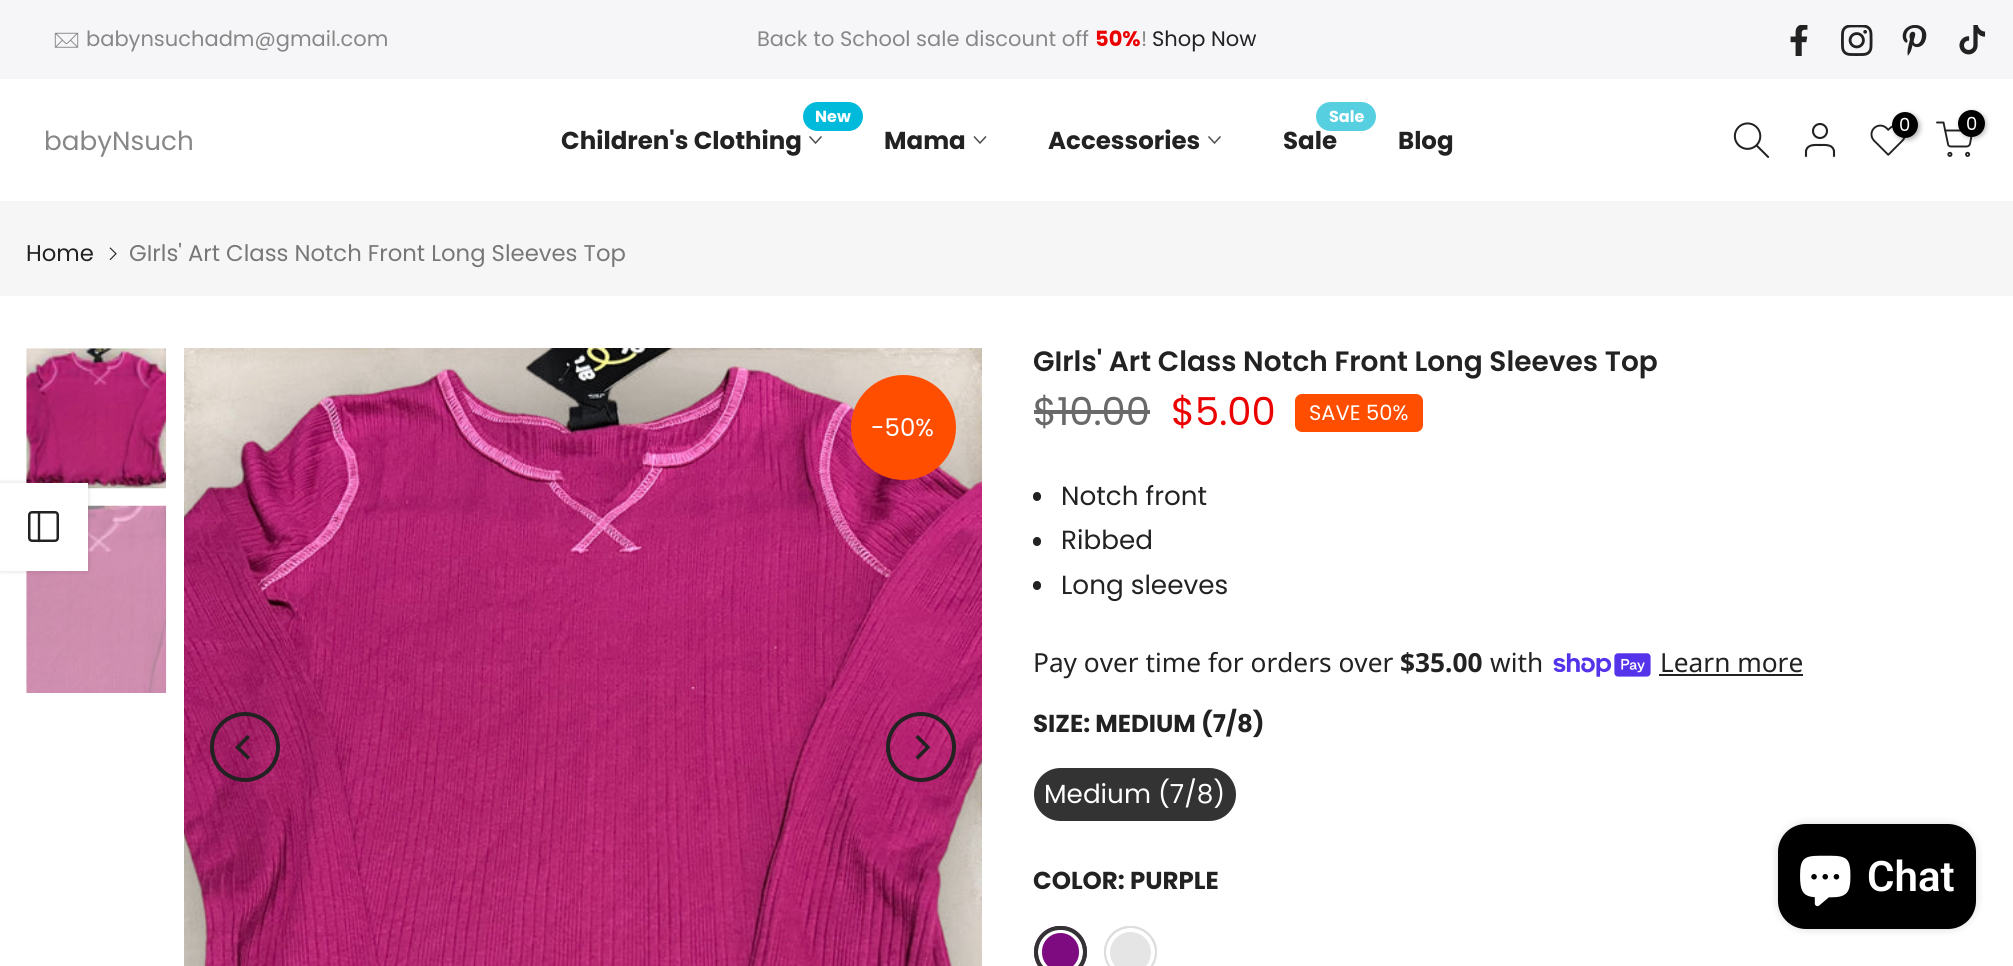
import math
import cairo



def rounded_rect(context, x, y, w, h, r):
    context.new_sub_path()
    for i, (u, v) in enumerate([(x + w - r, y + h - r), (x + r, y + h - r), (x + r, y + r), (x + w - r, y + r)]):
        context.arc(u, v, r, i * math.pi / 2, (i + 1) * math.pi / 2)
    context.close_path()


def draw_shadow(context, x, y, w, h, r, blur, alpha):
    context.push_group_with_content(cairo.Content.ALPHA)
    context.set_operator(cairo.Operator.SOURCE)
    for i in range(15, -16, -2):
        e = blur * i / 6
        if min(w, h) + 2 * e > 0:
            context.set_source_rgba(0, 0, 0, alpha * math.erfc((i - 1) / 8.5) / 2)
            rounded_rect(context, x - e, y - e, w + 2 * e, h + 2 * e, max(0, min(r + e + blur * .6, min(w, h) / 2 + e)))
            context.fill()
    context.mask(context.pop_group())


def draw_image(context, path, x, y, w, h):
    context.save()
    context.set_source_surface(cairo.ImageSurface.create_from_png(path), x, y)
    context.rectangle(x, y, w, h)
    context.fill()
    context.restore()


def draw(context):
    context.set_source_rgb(1, 1, 1)
    context.paint()
    context.set_source_rgb(246 / 255, 246 / 255, 248 / 255)
    context.rectangle(0, 0, 2013, 79)
    context.fill()
    draw_image(context, "images/1.png", 54, 32, 25, 16)
    draw_image(context, "images/2.png", 1790, 25, 18, 31)
    draw_image(context, "images/3.png", 1841, 25, 32, 31)
    draw_image(context, "images/4.png", 1902, 25, 25, 31)
    draw_image(context, "images/5.png", 1959, 25, 27, 30)
    context.set_source_rgb(0, 186 / 255, 219 / 255)
    rounded_rect(context, 803, 102, 60, 29, 14.5)
    context.fill()
    context.new_path()
    context.move_to(821, 137)
    context.line_to(815.5, 143)
    context.line_to(810, 137)
    context.set_source_rgb(78 / 255, 78 / 255, 78 / 255)
    context.set_line_width(1.5)
    context.set_line_cap(cairo.LineCap.SQUARE)
    context.stroke()
    context.new_path()
    context.move_to(985.5, 137)
    context.line_to(980, 143)
    context.line_to(974.5, 137)
    context.stroke()
    context.new_path()
    context.move_to(1220, 137)
    context.line_to(1214.5, 143)
    context.line_to(1209, 137)
    context.stroke()
    draw_image(context, "images/6.png", 1733, 122, 37, 36)
    context.arc(1820, 131, 7, 0, 2 * math.pi)
    context.set_source_rgb(34 / 255, 34 / 255, 34 / 255)
    context.set_line_width(2.1)
    context.set_line_cap(cairo.LineCap.BUTT)
    context.stroke()
    context.new_path()
    context.move_to(1834, 156)
    context.line_to(1834, 151)
    context.curve_to(1832.5, 144, 1825, 145, 1820, 145)
    context.curve_to(1815, 145, 1807.5, 144, 1806, 151)
    context.line_to(1806, 156)
    context.set_line_cap(cairo.LineCap.ROUND)
    context.set_line_join(cairo.LineJoin.ROUND)
    context.stroke()
    draw_image(context, "images/7.png", 1870, 124, 36, 32)
    context.set_source_rgb(0, 0, 0)
    draw_shadow(context, 1894, 114, 26, 26, 13, 2.5, 0.3)
    context.set_source_rgb(0, 0, 0)
    context.arc(1905, 125, 13, 0, 2 * math.pi)
    context.fill()
    context.new_path()
    context.move_to(1937, 122.5)
    context.line_to(1943.5, 122.5)
    context.line_to(1948, 144)
    context.curve_to(1948, 145.5, 1949.5, 146.5, 1951, 146.5)
    context.line_to(1966.5, 146.5)
    context.curve_to(1968, 146.5, 1969.5, 145.5, 1970, 144)
    context.line_to(1972.5, 130.5)
    context.line_to(1945, 130.5)
    context.set_source_rgb(34 / 255, 34 / 255, 34 / 255)
    context.set_line_width(1.9)
    context.stroke()
    context.set_source_rgb(0, 0, 0)
    draw_shadow(context, 1960, 112, 26, 26, 13, 2.5, 0.3)
    context.set_source_rgb(0, 0, 0)
    context.arc(1971.5, 123.5, 13.5, 0, 2 * math.pi)
    context.fill()
    context.arc(1949.9, 154.4, 1.6, 0, 2 * math.pi)
    context.set_source_rgb(34 / 255, 34 / 255, 34 / 255)
    context.set_line_cap(cairo.LineCap.BUTT)
    context.set_line_join(cairo.LineJoin.MITER)
    context.stroke()
    context.arc(1967.6, 154.4, 1.6, 0, 2 * math.pi)
    context.stroke()
    context.set_source_rgb(246 / 255, 246 / 255, 246 / 255)
    context.rectangle(0, 201, 2013, 95)
    context.fill()
    draw_image(context, "images/8.png", 109, 247, 8, 14)
    draw_image(context, "images/9.png", 26, 348, 141, 141)
    draw_image(context, "images/10.png", 26, 505, 141, 188)
    context.set_source_rgb(0, 0, 0)
    draw_shadow(context, 0, 483, 88, 88, 0, 2.5, 0.15)
    context.set_source_rgb(1, 1, 1)
    context.rectangle(0, 483, 88, 88)
    context.fill()
    rounded_rect(context, 29.25, 512.25, 28.5, 28.5, 2.75)
    context.set_source_rgb(34 / 255, 34 / 255, 34 / 255)
    context.set_line_width(2.5)
    context.stroke()
    context.new_path()
    context.move_to(39, 512.5)
    context.line_to(39, 541)
    context.set_line_width(2.4)
    context.set_line_cap(cairo.LineCap.ROUND)
    context.set_line_join(cairo.LineJoin.ROUND)
    context.stroke()
    draw_image(context, "images/11.png", 184, 348, 798, 618)
    context.arc(245, 747, 33, 0, 2 * math.pi)
    context.set_line_width(4)
    context.set_line_cap(cairo.LineCap.BUTT)
    context.set_line_join(cairo.LineJoin.MITER)
    context.stroke()
    draw_image(context, "images/12.png", 235, 735, 15, 25)
    context.arc(921, 747, 33, 0, 2 * math.pi)
    context.stroke()
    draw_image(context, "images/13.png", 915, 735, 16, 25)
    context.set_source_rgb(1, 78 / 255, 0)
    context.arc(903.5, 427.5, 52.5, 0, 2 * math.pi)
    context.fill()
    context.set_source_rgb(105 / 255, 105 / 255, 105 / 255)
    context.rectangle(1034, 410, 116, 4)
    context.fill()
    context.set_source_rgb(1, 78 / 255, 0)
    rounded_rect(context, 1295, 394, 128, 38, 7)
    context.fill()
    context.set_source_rgb(34 / 255, 34 / 255, 34 / 255)
    rounded_rect(context, 1033, 492, 8, 9, 4)
    context.fill()
    rounded_rect(context, 1033, 537, 8, 9, 4)
    context.fill()
    rounded_rect(context, 1033, 581, 8, 9, 4)
    context.fill()
    draw_image(context, "images/14.png", 1553, 653, 98, 24)
    context.rectangle(1659, 674, 144, 2)
    context.fill()
    context.set_source_rgb(51 / 255, 51 / 255, 51 / 255)
    rounded_rect(context, 1035, 769, 200, 51, 25.5)
    context.fill_preserve()
    context.set_line_width(2)
    context.stroke()
    context.set_source_rgb(126 / 255, 11 / 255, 128 / 255)
    rounded_rect(context, 1034, 926, 53, 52, 26)
    context.fill()
    rounded_rect(context, 1040, 931, 41, 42, 20.5)
    context.set_source_rgb(1, 1, 1)
    context.set_line_width(4)
    context.stroke()
    rounded_rect(context, 1036, 928, 49, 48, 24)
    context.set_source_rgb(51 / 255, 51 / 255, 51 / 255)
    context.stroke()
    context.set_source_rgb(229 / 255, 229 / 255, 229 / 255)
    rounded_rect(context, 1104, 926, 53, 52, 26)
    context.fill()
    context.arc(1130.5, 952.5, 22.5, 0, 2 * math.pi)
    context.set_source_rgb(1, 1, 1)
    context.stroke()
    rounded_rect(context, 1105, 927, 51, 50, 25)
    context.set_source_rgb(221 / 255, 221 / 255, 221 / 255)
    context.set_line_width(2)
    context.stroke()
    context.set_source_rgb(0, 0, 0)
    draw_shadow(context, 1778, 824, 198, 105, 28, 4.5, 0.15)
    context.set_source_rgb(0, 0, 0)
    rounded_rect(context, 1778, 824, 198, 105, 28)
    context.fill()
    draw_image(context, "images/15.png", 1800, 855, 51, 52)
    context.select_font_face("Poppins")
    context.set_font_size(21)
    context.set_source_rgb(135 / 255, 135 / 255, 135 / 255)
    context.move_to(86, 46)
    context.show_text("babynsuchadm@gmail.com")
    context.move_to(757, 46)
    context.show_text("Back to School sale discount off")
    context.select_font_face("Poppins", cairo.FontSlant.NORMAL, cairo.FontWeight.BOLD)
    context.set_source_rgb(236 / 255, 1 / 255, 1 / 255)
    context.move_to(1095, 46)
    context.show_text("50%")
    context.select_font_face("Poppins")
    context.set_source_rgb(135 / 255, 135 / 255, 135 / 255)
    context.move_to(1141, 46)
    context.show_text("!")
    context.set_source_rgb(34 / 255, 34 / 255, 34 / 255)
    context.move_to(1152, 46)
    context.show_text("Shop Now")
    context.select_font_face("Poppins", cairo.FontSlant.NORMAL, cairo.FontWeight.BOLD)
    context.set_font_size(16)
    context.set_source_rgb(1, 1, 1)
    context.move_to(815, 122)
    context.show_text("New")
    context.set_font_size(24.5)
    context.set_source_rgb(34 / 255, 34 / 255, 34 / 255)
    context.move_to(561, 149)
    context.show_text("Children's Clothing")
    context.move_to(884, 149)
    context.show_text("Mama")
    context.move_to(1048, 149)
    context.show_text("Accessories")
    context.move_to(1283, 149)
    context.show_text("Sale")
    context.set_source_rgb(86 / 255, 207 / 255, 225 / 255)
    rounded_rect(context, 1316, 102, 60, 29, 14.5)
    context.fill()
    context.set_font_size(16)
    context.set_source_rgb(1, 1, 1)
    context.move_to(1329, 122)
    context.show_text("Sale")
    context.set_font_size(24.5)
    context.set_source_rgb(34 / 255, 34 / 255, 34 / 255)
    context.move_to(1398, 149)
    context.show_text("Blog")
    context.select_font_face("Poppins")
    context.set_font_size(18)
    context.set_source_rgb(1, 1, 1)
    context.move_to(1899, 131)
    context.show_text("0")
    context.move_to(1966, 130)
    context.show_text("0")
    context.set_font_size(26.25)
    context.set_source_rgb(135 / 255, 135 / 255, 135 / 255)
    context.move_to(44, 150)
    context.show_text("babyNsuch")
    context.set_font_size(22.75)
    context.set_source_rgb(34 / 255, 34 / 255, 34 / 255)
    context.move_to(26, 261)
    context.show_text("Home")
    context.set_source_rgb(119 / 255, 119 / 255, 119 / 255)
    context.move_to(129, 261)
    context.show_text("GIrls' Art Class Notch Front Long Sleeves Top")
    context.set_font_size(24.5)
    context.set_source_rgb(1, 1, 1)
    context.move_to(871, 436)
    context.show_text("-50%")
    context.select_font_face("Poppins SemiBold")
    context.set_font_size(28)
    context.set_source_rgb(34 / 255, 34 / 255, 34 / 255)
    context.move_to(1033, 371)
    context.show_text("GIrls' Art Class Notch Front Long Sleeves Top")
    context.select_font_face("Poppins")
    context.set_font_size(38.5)
    context.set_source_rgb(105 / 255, 105 / 255, 105 / 255)
    context.move_to(1033, 425)
    context.show_text("$10.00")
    context.set_source_rgb(236 / 255, 1 / 255, 1 / 255)
    context.move_to(1171, 425)
    context.show_text("$5.00")
    context.set_font_size(21)
    context.set_source_rgb(1, 1, 1)
    context.move_to(1309, 420)
    context.show_text("SAVE 50%")
    context.set_font_size(26.25)
    context.set_source_rgb(34 / 255, 34 / 255, 34 / 255)
    context.move_to(1061, 505)
    context.show_text("Notch front")
    context.move_to(1061, 549)
    context.show_text("Ribbed")
    context.move_to(1061, 594)
    context.show_text("Long sleeves")
    context.select_font_face("Noto Sans")
    context.move_to(1033, 672)
    context.show_text("Pay over time for orders over")
    context.select_font_face("Noto Sans", cairo.FontSlant.NORMAL, cairo.FontWeight.BOLD)
    context.move_to(1400, 672)
    context.show_text("$35.00")
    context.select_font_face("Noto Sans")
    context.move_to(1490, 672)
    context.show_text("with")
    context.move_to(1660, 672)
    context.show_text("Learn more")
    context.select_font_face("Poppins", cairo.FontSlant.NORMAL, cairo.FontWeight.BOLD)
    context.set_font_size(24.5)
    context.move_to(1033, 732)
    context.show_text("SIZE: MEDIUM (7/8)")
    context.select_font_face("Poppins")
    context.set_font_size(26.25)
    context.set_source_rgb(1, 1, 1)
    context.move_to(1044, 803)
    context.show_text("Medium (7/8)")
    context.select_font_face("Poppins", cairo.FontSlant.NORMAL, cairo.FontWeight.BOLD)
    context.set_font_size(24.5)
    context.set_source_rgb(34 / 255, 34 / 255, 34 / 255)
    context.move_to(1033, 889)
    context.show_text("COLOR: PURPLE")
    context.select_font_face("Roboto SemiBold")
    context.set_font_size(42)
    context.set_source_rgb(1, 1, 1)
    context.move_to(1867, 891)
    context.show_text("Chat")


surface = cairo.ImageSurface(cairo.Format.RGB24, 2013, 966)
context = cairo.Context(surface)
options = cairo.FontOptions()
options.set_hint_metrics(cairo.HintMetrics.OFF)
options.set_hint_style(cairo.HintStyle.NONE)
context.set_font_options(options)
context.set_miter_limit(4)
draw(context)
surface.write_to_png("out.png")
